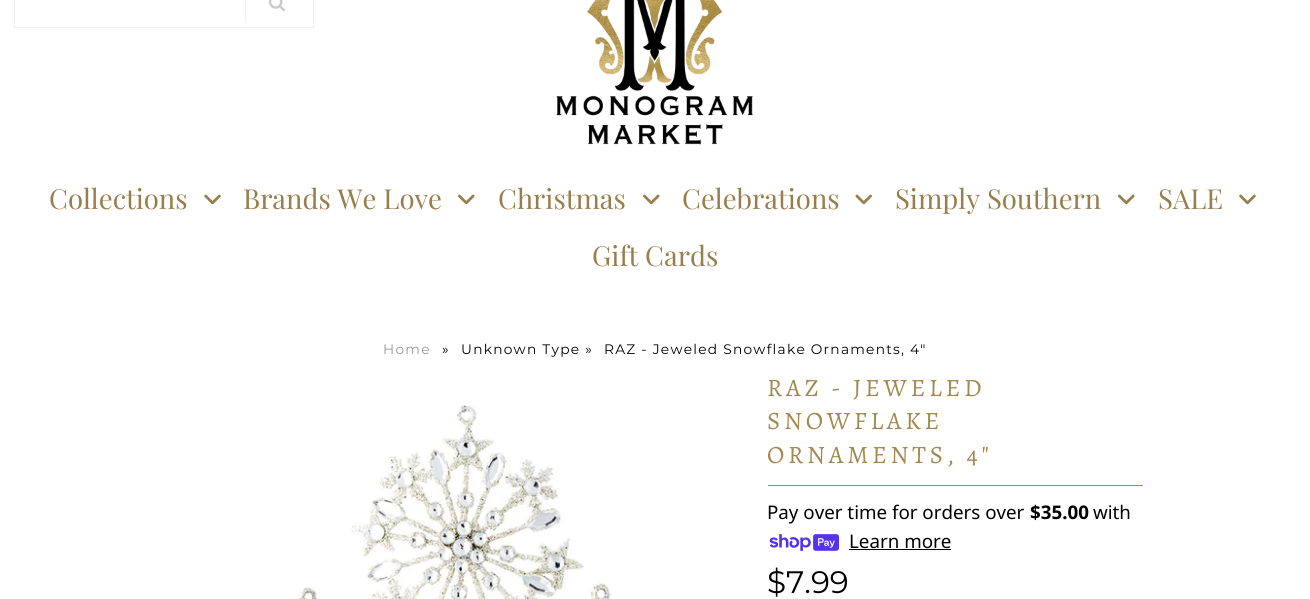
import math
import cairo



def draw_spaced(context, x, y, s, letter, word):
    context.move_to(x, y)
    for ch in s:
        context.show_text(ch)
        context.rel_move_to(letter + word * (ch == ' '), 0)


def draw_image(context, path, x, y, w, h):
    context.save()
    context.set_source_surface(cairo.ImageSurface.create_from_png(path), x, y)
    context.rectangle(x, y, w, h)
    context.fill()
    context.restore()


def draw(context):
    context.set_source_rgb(1, 1, 1)
    context.paint()
    context.rectangle(14.5, -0.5, 299, 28)
    context.set_source_rgb(239 / 255, 239 / 255, 239 / 255)
    context.set_line_width(1)
    context.stroke()
    context.rectangle(245, 0, 1, 21)
    context.fill()
    draw_image(context, "images/1.png", 268, 0, 17, 12)
    draw_image(context, "images/2.png", 556, 0, 197, 145)
    draw_image(context, "images/3.png", 204, 194, 17, 11)
    draw_image(context, "images/4.png", 458, 194, 17, 11)
    draw_image(context, "images/4.png", 643, 194, 17, 11)
    draw_image(context, "images/5.png", 855, 194, 17, 11)
    draw_image(context, "images/4.png", 1118, 194, 17, 11)
    draw_image(context, "images/3.png", 1239, 194, 17, 11)
    draw_image(context, "images/6.png", 298, 405, 314, 194)
    context.set_source_rgb(163 / 255, 137 / 255, 80 / 255)
    context.rectangle(768, 485, 375, 1)
    context.fill()
    draw_image(context, "images/7.png", 769, 534, 70, 17)
    context.set_source_rgb(0, 0, 0)
    context.rectangle(849, 549, 102, 1)
    context.fill()
    context.select_font_face("Playfair Display")
    context.set_font_size(27.5)
    context.set_source_rgb(152 / 255, 126 / 255, 76 / 255)
    context.move_to(49, 209)
    context.show_text("Collections")
    context.move_to(243, 209)
    context.show_text("Brands We Love")
    context.move_to(498, 209)
    context.show_text("Christmas")
    context.move_to(682, 209)
    context.show_text("Celebrations")
    context.move_to(895, 209)
    context.show_text("Simply Southern")
    context.move_to(1158, 209)
    context.show_text("SALE")
    context.move_to(592, 266)
    context.show_text("Gift Cards")
    context.select_font_face("Montserrat")
    context.set_font_size(13.75)
    context.set_source_rgb(153 / 255, 153 / 255, 153 / 255)
    draw_spaced(context, 383, 354, "Home", 1.25, 0)
    context.set_source_rgb(0, 0, 0)
    draw_spaced(context, 442, 354, "»", 1.25, 0)
    draw_spaced(context, 461, 354, "Unknown Type »", 1.25, 0)
    draw_spaced(context, 604, 354, "RAZ - Jeweled Snowflake Ornaments, 4\"", 1.25, 0)
    context.select_font_face("Alegreya")
    context.set_font_size(25)
    context.set_source_rgb(163 / 255, 137 / 255, 80 / 255)
    draw_spaced(context, 767, 396, "RAZ - JEWELED", 3.75, 0)
    draw_spaced(context, 767, 429, "SNOWFLAKE", 3.75, 0)
    draw_spaced(context, 767, 463, "ORNAMENTS, 4\"", 3.75, 0)
    context.select_font_face("Noto Sans")
    context.set_font_size(18.75)
    context.set_source_rgb(0, 0, 0)
    context.move_to(767, 519)
    context.show_text("Pay over time for orders over")
    context.select_font_face("Noto Sans", cairo.FontSlant.NORMAL, cairo.FontWeight.BOLD)
    context.move_to(1030, 519)
    context.show_text("$35.00")
    context.select_font_face("Noto Sans")
    context.move_to(1093, 519)
    context.show_text("with")
    context.move_to(849, 548)
    context.show_text("Learn more")
    context.select_font_face("Montserrat")
    context.set_font_size(31)
    context.move_to(767, 593)
    context.show_text("$7.99")


surface = cairo.ImageSurface(cairo.Format.RGB24, 1310, 599)
context = cairo.Context(surface)
options = cairo.FontOptions()
options.set_hint_metrics(cairo.HintMetrics.OFF)
options.set_hint_style(cairo.HintStyle.NONE)
context.set_font_options(options)
context.set_miter_limit(4)
draw(context)
surface.write_to_png("out.png")
